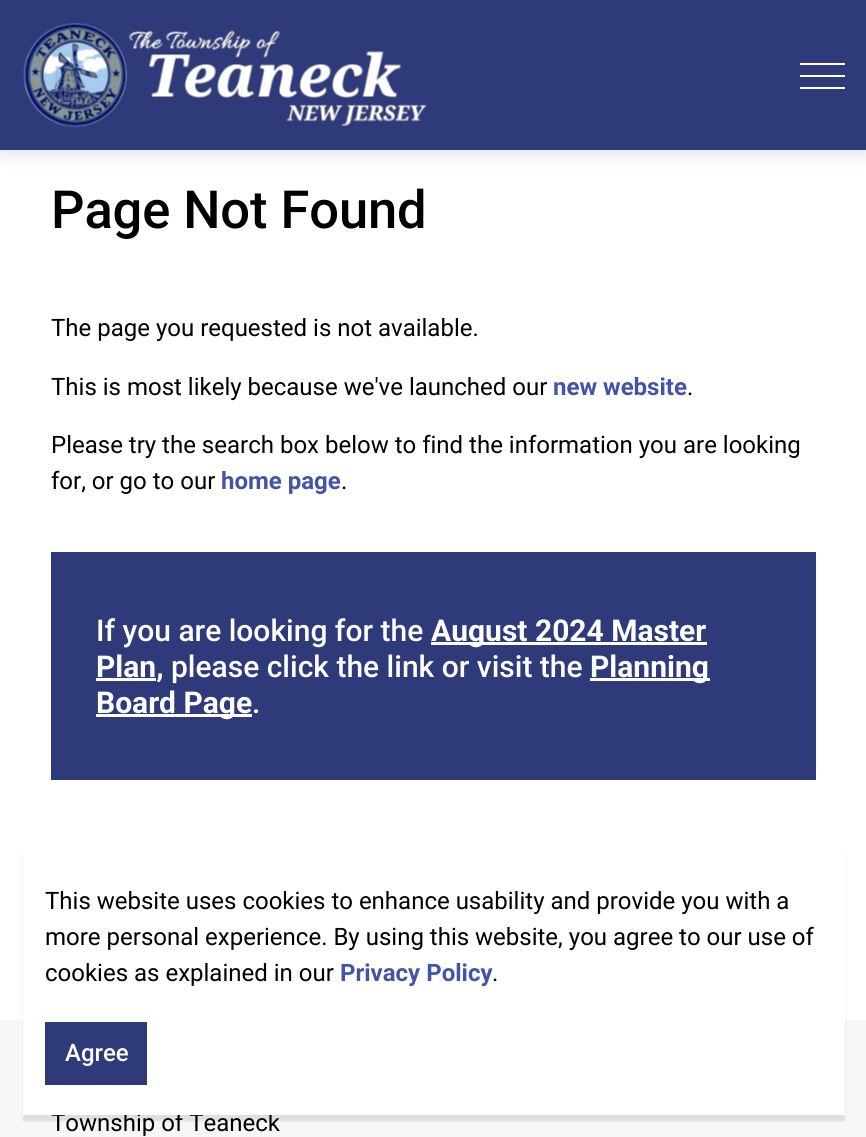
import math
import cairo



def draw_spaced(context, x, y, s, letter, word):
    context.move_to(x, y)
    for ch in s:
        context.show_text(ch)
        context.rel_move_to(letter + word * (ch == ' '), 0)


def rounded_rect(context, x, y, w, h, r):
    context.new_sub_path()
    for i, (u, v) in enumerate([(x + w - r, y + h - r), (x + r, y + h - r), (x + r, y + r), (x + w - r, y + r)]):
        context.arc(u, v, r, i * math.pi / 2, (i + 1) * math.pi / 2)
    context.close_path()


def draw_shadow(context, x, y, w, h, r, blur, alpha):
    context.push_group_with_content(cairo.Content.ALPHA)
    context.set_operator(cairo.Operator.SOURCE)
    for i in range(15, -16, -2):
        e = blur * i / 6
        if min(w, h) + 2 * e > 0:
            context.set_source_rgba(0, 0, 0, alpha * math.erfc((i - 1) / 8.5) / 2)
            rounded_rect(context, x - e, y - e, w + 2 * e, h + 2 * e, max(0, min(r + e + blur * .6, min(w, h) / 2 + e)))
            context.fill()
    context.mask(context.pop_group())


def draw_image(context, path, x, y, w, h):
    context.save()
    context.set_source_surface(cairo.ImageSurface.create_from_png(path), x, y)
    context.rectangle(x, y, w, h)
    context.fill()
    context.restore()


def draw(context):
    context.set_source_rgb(1, 1, 1)
    context.paint()
    context.set_source_rgb(0, 0, 0)
    draw_shadow(context, 0, 6, 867, 150, 0, 7.5, 0.1)
    context.set_source_rgb(47 / 255, 58 / 255, 122 / 255)
    context.rectangle(0, 0, 866, 150)
    context.fill()
    draw_image(context, "images/1.png", 23, 23, 404, 105)
    context.set_source_rgb(1, 1, 1)
    context.rectangle(800, 75, 45, 2)
    context.fill()
    context.rectangle(800, 63, 45, 2)
    context.fill()
    context.rectangle(800, 87, 45, 2)
    context.fill()
    context.set_source_rgb(47 / 255, 58 / 255, 122 / 255)
    context.rectangle(51, 552, 765, 228)
    context.fill()
    context.set_source_rgb(1, 1, 1)
    context.rectangle(431, 642, 276, 3)
    context.fill()
    context.rectangle(96, 678, 60, 3)
    context.fill()
    context.rectangle(590, 678, 120, 3)
    context.fill()
    context.rectangle(96, 714, 156, 3)
    context.fill()
    context.set_source_rgb(247 / 255, 247 / 255, 247 / 255)
    context.rectangle(0, 1020, 866, 117)
    context.fill()
    context.set_source_rgb(0, 0, 0)
    draw_shadow(context, 23, 852, 822, 269, 0, 1, 0.1)
    context.select_font_face("Roboto Medium")
    context.set_font_size(52.5)
    context.set_source_rgb(0, 0, 0)
    draw_spaced(context, 51, 228, "Page Not Found", -0.1, 0)
    context.select_font_face("Roboto")
    context.set_font_size(24)
    context.move_to(51, 336)
    context.show_text("The page you requested is not available.")
    context.move_to(51, 395)
    context.show_text("This is most likely because we've launched our")
    context.select_font_face("Roboto", cairo.FontSlant.NORMAL, cairo.FontWeight.BOLD)
    context.set_source_rgb(66 / 255, 83 / 255, 169 / 255)
    context.move_to(553, 395)
    context.show_text("new website")
    context.select_font_face("Roboto")
    context.set_source_rgb(0, 0, 0)
    context.move_to(687, 395)
    context.show_text(".")
    context.move_to(51, 453)
    context.show_text("Please try the search box below to find the information you are looking")
    context.move_to(51, 489)
    context.show_text("for, or go to our")
    context.select_font_face("Roboto", cairo.FontSlant.NORMAL, cairo.FontWeight.BOLD)
    context.set_source_rgb(66 / 255, 83 / 255, 169 / 255)
    context.move_to(221, 489)
    context.show_text("home page")
    context.select_font_face("Roboto")
    context.set_source_rgb(0, 0, 0)
    context.move_to(341, 489)
    context.show_text(".")
    context.select_font_face("Roboto Medium")
    context.set_font_size(30)
    context.set_source_rgb(1, 1, 1)
    context.move_to(96, 641)
    context.show_text("If you are looking for the")
    context.select_font_face("Roboto", cairo.FontSlant.NORMAL, cairo.FontWeight.BOLD)
    context.move_to(431, 641)
    context.show_text("August 2024 Master")
    context.move_to(96, 677)
    context.show_text("Plan,")
    context.select_font_face("Roboto Medium")
    context.move_to(171, 677)
    context.show_text("please click the link or visit the")
    context.select_font_face("Roboto", cairo.FontSlant.NORMAL, cairo.FontWeight.BOLD)
    context.move_to(590, 677)
    context.show_text("Planning")
    context.move_to(96, 713)
    context.show_text("Board Page")
    context.select_font_face("Roboto Medium")
    context.move_to(252, 713)
    context.show_text(".")
    context.select_font_face("Roboto")
    context.set_font_size(24)
    context.set_source_rgb(0, 0, 0)
    context.move_to(51, 1131)
    context.show_text("Township of Teaneck")
    context.set_source_rgb(1, 1, 1)
    context.rectangle(23, 851, 822, 264)
    context.fill()
    context.set_source_rgb(0, 0, 0)
    context.move_to(45, 909)
    context.show_text("This website uses cookies to enhance usability and provide you with a")
    context.move_to(45, 945)
    context.show_text("more personal experience. By using this website, you agree to our use of")
    context.move_to(45, 981)
    context.show_text("cookies as explained in our")
    context.select_font_face("Roboto", cairo.FontSlant.NORMAL, cairo.FontWeight.BOLD)
    context.set_source_rgb(66 / 255, 83 / 255, 169 / 255)
    context.move_to(340, 981)
    context.show_text("Privacy Policy")
    context.select_font_face("Roboto")
    context.set_source_rgb(0, 0, 0)
    context.move_to(492, 981)
    context.show_text(".")
    context.set_source_rgb(47 / 255, 58 / 255, 122 / 255)
    context.rectangle(45, 1022, 102, 63)
    context.fill()
    context.select_font_face("Roboto Medium")
    context.set_source_rgb(1, 1, 1)
    context.move_to(65, 1061)
    context.show_text("Agree")


surface = cairo.ImageSurface(cairo.Format.RGB24, 866, 1137)
context = cairo.Context(surface)
options = cairo.FontOptions()
options.set_hint_metrics(cairo.HintMetrics.OFF)
options.set_hint_style(cairo.HintStyle.NONE)
context.set_font_options(options)
context.set_miter_limit(4)
draw(context)
surface.write_to_png("out.png")
